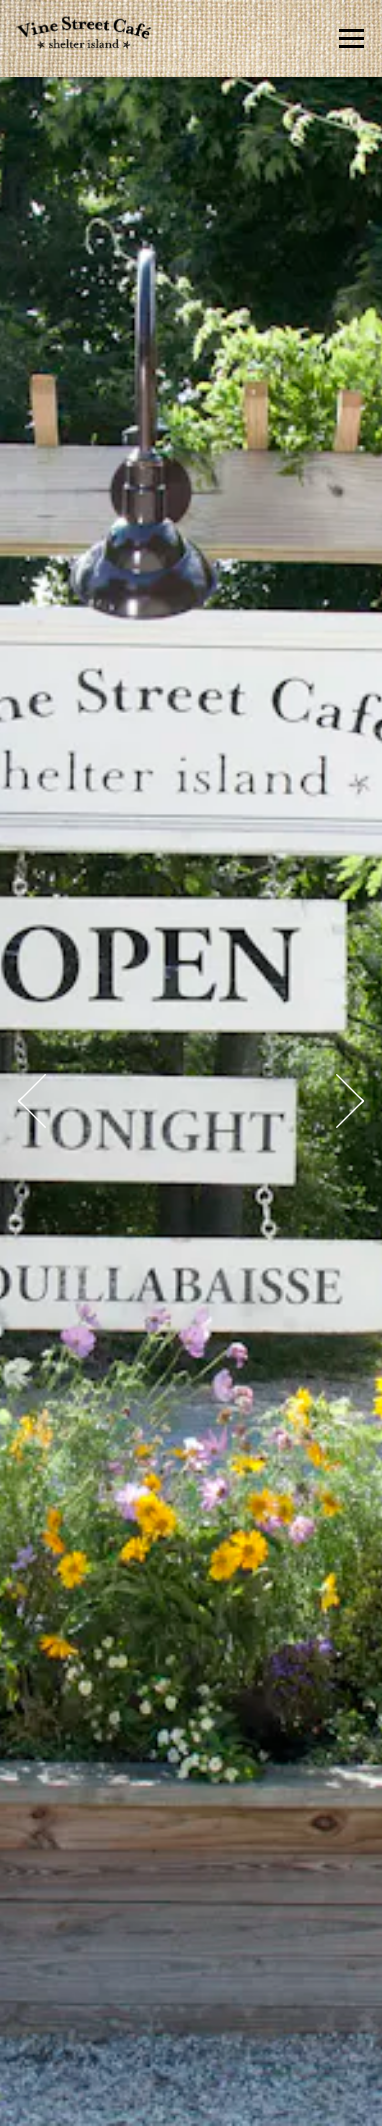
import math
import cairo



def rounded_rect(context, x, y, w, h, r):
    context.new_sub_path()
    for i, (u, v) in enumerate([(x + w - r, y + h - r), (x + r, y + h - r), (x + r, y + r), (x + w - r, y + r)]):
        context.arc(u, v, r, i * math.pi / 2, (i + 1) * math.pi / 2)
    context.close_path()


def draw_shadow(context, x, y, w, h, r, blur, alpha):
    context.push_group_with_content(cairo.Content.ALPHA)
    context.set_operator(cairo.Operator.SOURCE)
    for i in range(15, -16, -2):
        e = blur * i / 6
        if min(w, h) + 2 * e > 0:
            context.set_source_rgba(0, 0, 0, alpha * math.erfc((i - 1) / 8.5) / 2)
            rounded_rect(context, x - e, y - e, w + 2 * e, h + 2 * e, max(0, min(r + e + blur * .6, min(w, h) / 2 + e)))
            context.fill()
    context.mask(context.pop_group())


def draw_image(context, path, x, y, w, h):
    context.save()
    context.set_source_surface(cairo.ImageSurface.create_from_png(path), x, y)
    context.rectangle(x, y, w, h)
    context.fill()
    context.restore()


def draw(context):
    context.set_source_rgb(1, 1, 1)
    context.paint()
    draw_image(context, "images/3.png", 0, 77, 382, 2049)
    context.set_source_rgb(0, 0, 0)
    draw_shadow(context, 0, 2, 382, 77, 0, 2.5, 0.4)
    draw_image(context, "images/1.png", 0, 0, 382, 77)
    draw_image(context, "images/2.png", 15, 16, 136, 33)
    context.set_source_rgb(0, 0, 0)
    context.rectangle(339, 29, 25, 3)
    context.fill()
    context.rectangle(339, 37, 25, 3)
    context.fill()
    context.rectangle(339, 45, 25, 3)
    context.fill()
    context.set_source_rgb(1, 1, 1)
    context.new_path()
    context.move_to(45, 1128)
    context.line_to(23, 1106)
    context.curve_to(16, 1100, 16, 1102, 23, 1096)
    context.line_to(45, 1074)
    context.curve_to(45, 1074, 46, 1074, 46, 1075)
    context.line_to(20, 1101)
    context.line_to(46, 1127)
    context.curve_to(46, 1127, 46, 1128, 45, 1128)
    context.close_path()
    context.fill()
    context.new_path()
    context.move_to(337, 1128)
    context.line_to(359, 1106)
    context.curve_to(366, 1100, 366, 1102, 359, 1096)
    context.line_to(337, 1074)
    context.curve_to(337, 1074, 336, 1074, 336, 1075)
    context.line_to(362, 1101)
    context.line_to(336, 1127)
    context.curve_to(336, 1127, 336, 1128, 337, 1128)
    context.close_path()
    context.fill()


surface = cairo.ImageSurface(cairo.Format.RGB24, 382, 2126)
context = cairo.Context(surface)
options = cairo.FontOptions()
options.set_hint_metrics(cairo.HintMetrics.OFF)
options.set_hint_style(cairo.HintStyle.NONE)
context.set_font_options(options)
context.set_miter_limit(4)
draw(context)
surface.write_to_png("out.png")
